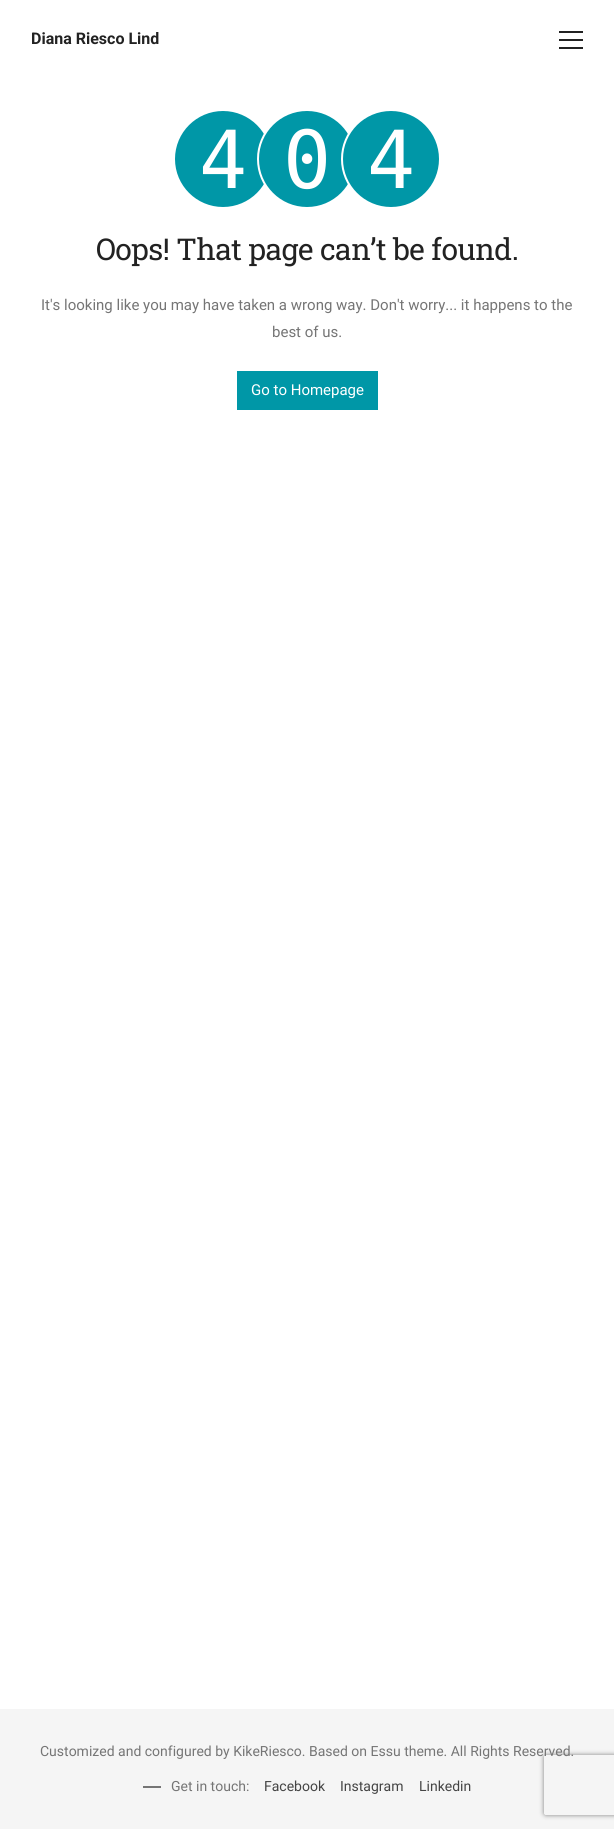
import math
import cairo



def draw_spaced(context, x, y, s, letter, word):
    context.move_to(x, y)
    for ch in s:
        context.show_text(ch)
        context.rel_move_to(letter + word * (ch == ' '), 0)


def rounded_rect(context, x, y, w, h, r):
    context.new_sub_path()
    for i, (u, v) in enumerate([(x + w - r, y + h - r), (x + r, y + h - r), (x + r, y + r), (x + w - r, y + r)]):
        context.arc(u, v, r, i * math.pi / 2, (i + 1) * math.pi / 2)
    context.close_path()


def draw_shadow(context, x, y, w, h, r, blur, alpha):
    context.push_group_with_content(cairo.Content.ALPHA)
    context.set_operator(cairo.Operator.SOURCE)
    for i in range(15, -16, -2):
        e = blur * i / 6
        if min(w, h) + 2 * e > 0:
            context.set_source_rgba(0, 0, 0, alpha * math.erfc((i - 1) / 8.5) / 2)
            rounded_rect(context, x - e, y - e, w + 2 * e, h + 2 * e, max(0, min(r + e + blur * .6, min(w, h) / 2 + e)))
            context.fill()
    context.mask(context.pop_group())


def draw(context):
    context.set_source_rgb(1, 1, 1)
    context.paint()
    context.set_source_rgb(34 / 255, 34 / 255, 34 / 255)
    context.rectangle(559, 39, 24, 2)
    context.fill()
    context.rectangle(559, 31, 24, 2)
    context.fill()
    context.rectangle(559, 47, 24, 2)
    context.fill()
    context.set_source_rgb(0, 151 / 255, 167 / 255)
    context.arc(223, 159, 49, 0, 2 * math.pi)
    context.fill_preserve()
    context.set_source_rgb(1, 1, 1)
    context.stroke()
    context.set_source_rgb(0, 151 / 255, 167 / 255)
    context.arc(307, 159, 49, 0, 2 * math.pi)
    context.fill_preserve()
    context.set_source_rgb(1, 1, 1)
    context.stroke()
    context.set_source_rgb(0, 151 / 255, 167 / 255)
    context.arc(391, 159, 49, 0, 2 * math.pi)
    context.fill_preserve()
    context.set_source_rgb(1, 1, 1)
    context.stroke()
    context.set_source_rgb(0, 151 / 255, 167 / 255)
    context.rectangle(237, 371, 141, 39)
    context.fill()
    context.set_source_rgb(245 / 255, 245 / 255, 245 / 255)
    context.rectangle(0, 1709, 614, 120)
    context.fill()
    context.set_source_rgb(117 / 255, 117 / 255, 117 / 255)
    context.rectangle(143, 1786, 18, 2)
    context.fill()
    context.save()
    context.set_fill_rule(cairo.FillRule.EVEN_ODD)
    context.new_path()
    context.move_to(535, 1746)
    context.line_to(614, 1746)
    context.line_to(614, 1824)
    context.line_to(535, 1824)
    context.close_path()
    context.move_to(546, 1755)
    context.line_to(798, 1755)
    context.curve_to(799, 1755, 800, 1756, 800, 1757)
    context.line_to(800, 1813)
    context.curve_to(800, 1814, 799, 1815, 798, 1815)
    context.line_to(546, 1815)
    context.curve_to(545, 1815, 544, 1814, 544, 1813)
    context.line_to(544, 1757)
    context.curve_to(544, 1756, 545, 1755, 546, 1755)
    context.close_path()
    context.clip()
    context.set_source_rgb(128 / 255, 128 / 255, 128 / 255)
    draw_shadow(context, 544, 1755, 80, 60, 2, 2.5, 1)
    context.restore()
    context.select_font_face("Roboto", cairo.FontSlant.NORMAL, cairo.FontWeight.BOLD)
    context.set_font_size(16)
    context.set_source_rgb(34 / 255, 34 / 255, 34 / 255)
    context.move_to(31, 44)
    context.show_text("Diana Riesco Lind")
    context.select_font_face("DejaVu Sans Mono")
    context.set_font_size(80)
    context.set_source_rgb(1, 1, 1)
    context.move_to(199, 188)
    context.show_text("4")
    context.move_to(283, 188)
    context.show_text("0")
    context.move_to(367, 188)
    context.show_text("4")
    context.select_font_face("Roboto Slab")
    context.set_font_size(30)
    context.set_source_rgb(34 / 255, 34 / 255, 34 / 255)
    draw_spaced(context, 96, 260, "Oops! That page can’t be found.", -0.5, 0)
    context.select_font_face("Roboto")
    context.set_font_size(15)
    context.set_source_rgb(117 / 255, 117 / 255, 117 / 255)
    context.move_to(41, 310)
    context.show_text("It's looking like you may have taken a wrong way. Don't worry... it happens to the")
    context.move_to(272, 337)
    context.show_text("best of us.")
    context.set_source_rgb(1, 1, 1)
    context.move_to(251, 395)
    context.show_text("Go to Homepage")
    context.set_font_size(14)
    context.set_source_rgb(117 / 255, 117 / 255, 117 / 255)
    context.move_to(40, 1756)
    context.show_text("Customized and configured by KikeRiesco. Based on Essu theme. All Rights Reserved.")
    context.move_to(171, 1791)
    context.show_text("Get in touch:")
    context.set_source_rgb(68 / 255, 68 / 255, 68 / 255)
    context.move_to(264, 1791)
    context.show_text("Facebook")
    context.move_to(340, 1791)
    context.show_text("Instagram")
    context.move_to(419, 1791)
    context.show_text("Linkedin")


surface = cairo.ImageSurface(cairo.Format.RGB24, 614, 1829)
context = cairo.Context(surface)
options = cairo.FontOptions()
options.set_hint_metrics(cairo.HintMetrics.OFF)
options.set_hint_style(cairo.HintStyle.NONE)
context.set_font_options(options)
context.set_miter_limit(4)
draw(context)
surface.write_to_png("out.png")
